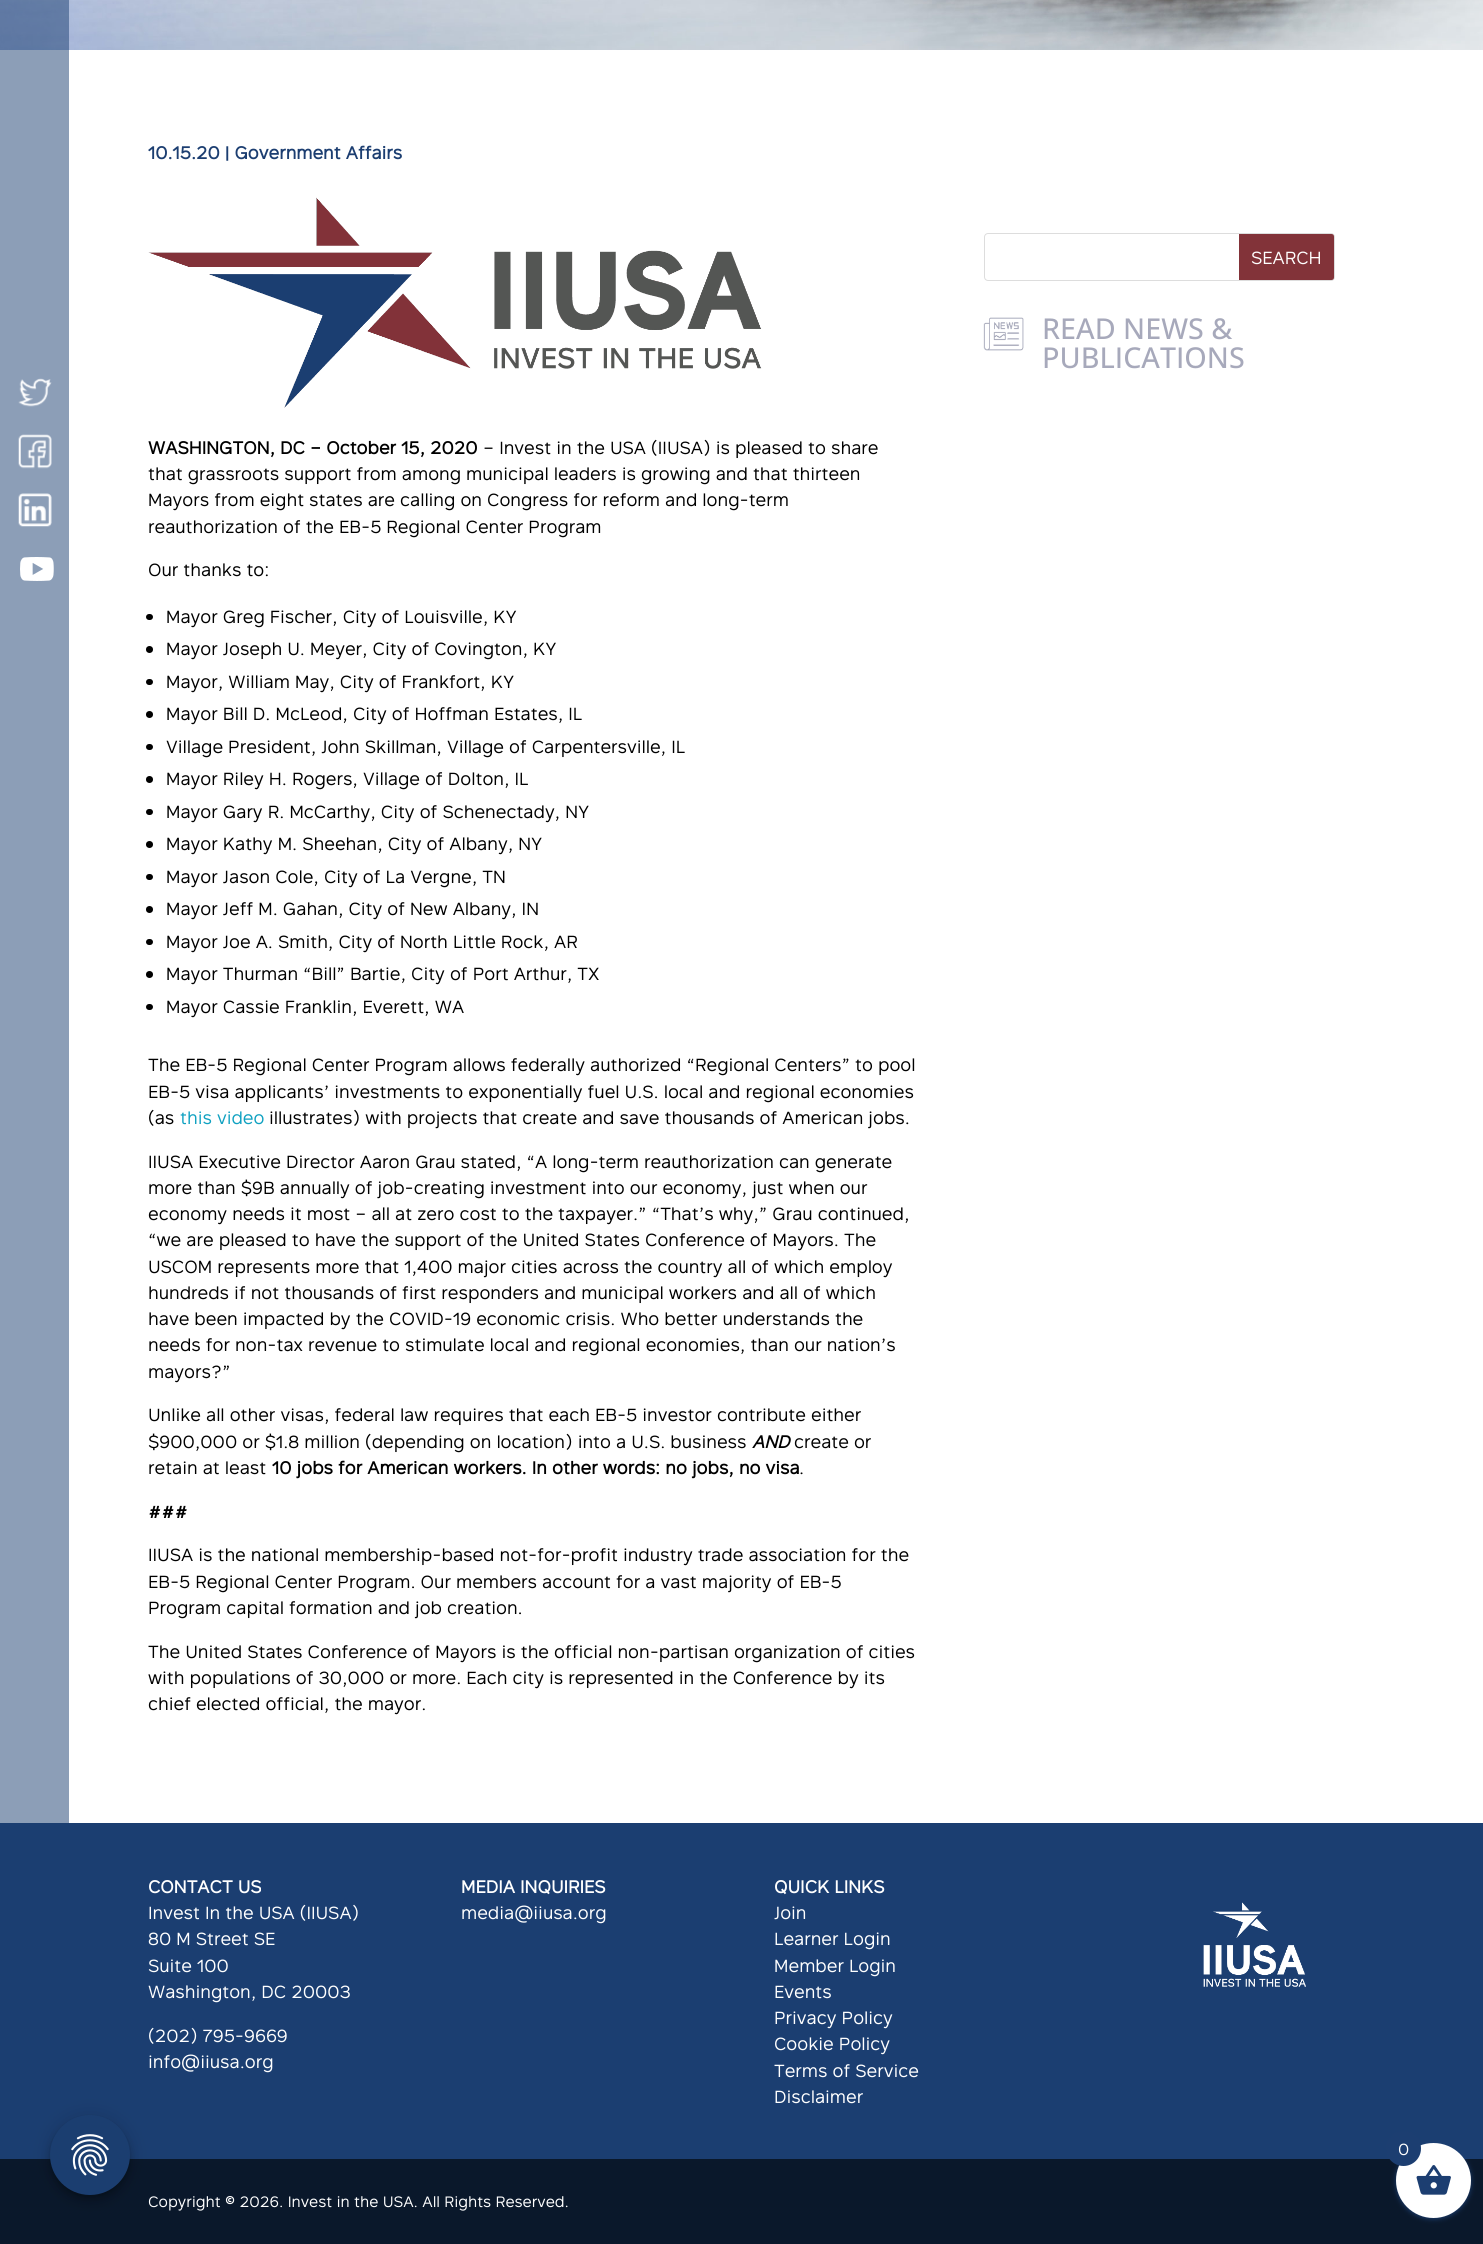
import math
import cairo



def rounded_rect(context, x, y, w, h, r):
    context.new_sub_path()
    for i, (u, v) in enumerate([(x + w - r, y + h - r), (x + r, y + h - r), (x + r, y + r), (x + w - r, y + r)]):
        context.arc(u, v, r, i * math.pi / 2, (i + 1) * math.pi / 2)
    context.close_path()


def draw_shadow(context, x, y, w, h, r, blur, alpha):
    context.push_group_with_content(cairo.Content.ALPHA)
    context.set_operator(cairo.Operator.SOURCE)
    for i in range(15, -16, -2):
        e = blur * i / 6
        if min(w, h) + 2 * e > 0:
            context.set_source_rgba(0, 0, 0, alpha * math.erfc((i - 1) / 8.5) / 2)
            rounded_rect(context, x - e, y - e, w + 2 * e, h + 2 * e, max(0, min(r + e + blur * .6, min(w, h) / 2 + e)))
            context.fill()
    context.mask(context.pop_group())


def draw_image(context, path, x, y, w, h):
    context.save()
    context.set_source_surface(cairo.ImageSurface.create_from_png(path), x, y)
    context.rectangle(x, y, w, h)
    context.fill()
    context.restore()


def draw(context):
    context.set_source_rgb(1, 1, 1)
    context.paint()
    context.set_source_rgb(27 / 255, 62 / 255, 113 / 255)
    context.rectangle(0, 1823, 1483, 336)
    context.fill()
    context.set_source_rgb(10 / 255, 24 / 255, 43 / 255)
    context.rectangle(0, 2159, 1483, 85)
    context.fill()
    context.set_source_rgb(0, 0, 0)
    draw_shadow(context, 50, 2116, 80, 80, 40, 11, 0.12)
    draw_shadow(context, 50, 2123, 80, 80, 40, 6, 0.14)
    draw_shadow(context, 51, 2120, 78, 78, 39, 3, 0.2)
    context.set_source_rgb(27 / 255, 62 / 255, 112 / 255)
    context.arc(90, 2155, 40, 0, 2 * math.pi)
    context.fill()
    draw_image(context, "images/1.png", 71, 2134, 38, 42)
    draw_image(context, "images/2.png", 0, 0, 1483, 50)
    context.set_source_rgba(27 / 255, 62 / 255, 113 / 255, 0.5)
    context.rectangle(0, 0, 69, 1823)
    context.fill()
    draw_image(context, "images/3.png", 18, 378, 34, 29)
    draw_image(context, "images/4.png", 18, 434, 34, 35)
    draw_image(context, "images/5.png", 18, 493, 34, 34)
    draw_image(context, "images/6.png", 20, 557, 34, 24)
    draw_image(context, "images/7.png", 148, 197, 614, 211)
    context.set_source_rgb(0, 0, 0)
    rounded_rect(context, 146, 614, 7, 6, 3)
    context.fill()
    context.arc(149.5, 649.5, 3.5, 0, 2 * math.pi)
    context.fill()
    rounded_rect(context, 146, 679, 7, 6, 3)
    context.fill()
    context.arc(149.5, 714.5, 3.5, 0, 2 * math.pi)
    context.fill()
    rounded_rect(context, 146, 744, 7, 6, 3)
    context.fill()
    context.arc(149.5, 779.5, 3.5, 0, 2 * math.pi)
    context.fill()
    rounded_rect(context, 146, 809, 7, 6, 3)
    context.fill()
    context.arc(149.5, 844.5, 3.5, 0, 2 * math.pi)
    context.fill()
    rounded_rect(context, 146, 874, 7, 6, 3)
    context.fill()
    context.arc(149.5, 909.5, 3.5, 0, 2 * math.pi)
    context.fill()
    rounded_rect(context, 146, 939, 7, 6, 3)
    context.fill()
    context.arc(149.5, 974.5, 3.5, 0, 2 * math.pi)
    context.fill()
    rounded_rect(context, 146, 1004, 7, 6, 3)
    context.fill()
    rounded_rect(context, 984.5, 233.5, 350, 47, 3.5)
    context.set_source_rgb(221 / 255, 221 / 255, 221 / 255)
    context.set_line_width(1)
    context.stroke()
    context.set_source_rgb(130 / 255, 51 / 255, 57 / 255)
    context.new_path()
    context.move_to(1239, 234)
    context.line_to(1331.5, 234)
    context.curve_to(1333, 234, 1334, 235, 1334, 236.5)
    context.line_to(1334, 277.5)
    context.curve_to(1334, 279, 1333, 280, 1331.5, 280)
    context.line_to(1239, 280)
    context.close_path()
    context.fill()
    draw_image(context, "images/8.png", 983, 317, 41, 34)
    draw_image(context, "images/9.png", 1203, 1902, 103, 85)
    context.set_source_rgb(28 / 255, 62 / 255, 113 / 255)
    draw_shadow(context, 1396, 2144, 75, 75, 37.5, 2.5, 1)
    context.set_source_rgb(1, 1, 1)
    context.arc(1433.5, 2180.5, 37.5, 0, 2 * math.pi)
    context.fill()
    draw_image(context, "images/10.png", 1416, 2165, 35, 30)
    context.set_source_rgb(28 / 255, 62 / 255, 113 / 255)
    context.arc(1403.5, 2148.5, 17.5, 0, 2 * math.pi)
    context.fill()
    context.select_font_face("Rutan", cairo.FontSlant.NORMAL, cairo.FontWeight.BOLD)
    context.set_font_size(17.5)
    context.move_to(148, 159)
    context.show_text("10.15.20 | Government Affairs")
    context.set_source_rgb(0, 0, 0)
    context.move_to(148, 454)
    context.show_text("WASHINGTON, DC – October 15, 2020")
    context.select_font_face("Rutan")
    context.move_to(483, 454)
    context.show_text("– Invest in the USA (IIUSA) is pleased to share")
    context.move_to(148, 480)
    context.show_text("that grassroots support from among municipal leaders is growing and that thirteen")
    context.move_to(148, 506)
    context.show_text("Mayors from eight states are calling on Congress for reform and long-term")
    context.move_to(148, 533)
    context.show_text("reauthorization of the EB-5 Regional Center Program")
    context.move_to(148, 576)
    context.show_text("Our thanks to:")
    context.move_to(166, 623)
    context.show_text("Mayor Greg Fischer, City of Louisville, KY")
    context.move_to(166, 655)
    context.show_text("Mayor Joseph U. Meyer, City of Covington, KY")
    context.move_to(166, 688)
    context.show_text("Mayor, William May, City of Frankfort, KY")
    context.move_to(166, 720)
    context.show_text("Mayor Bill D. McLeod, City of Hoffman Estates, IL")
    context.move_to(166, 753)
    context.show_text("Village President, John Skillman, Village of Carpentersville, IL")
    context.move_to(166, 785)
    context.show_text("Mayor Riley H. Rogers, Village of Dolton, IL")
    context.move_to(166, 818)
    context.show_text("Mayor Gary R. McCarthy, City of Schenectady, NY")
    context.move_to(166, 850)
    context.show_text("Mayor Kathy M. Sheehan, City of Albany, NY")
    context.move_to(166, 883)
    context.show_text("Mayor Jason Cole, City of La Vergne, TN")
    context.move_to(166, 915)
    context.show_text("Mayor Jeff M. Gahan, City of New Albany, IN")
    context.move_to(166, 948)
    context.show_text("Mayor Joe A. Smith, City of North Little Rock, AR")
    context.move_to(166, 980)
    context.show_text("Mayor Thurman “Bill” Bartie, City of Port Arthur, TX")
    context.move_to(166, 1013)
    context.show_text("Mayor Cassie Franklin, Everett, WA")
    context.move_to(148, 1071)
    context.show_text("The EB-5 Regional Center Program allows federally authorized “Regional Centers” to pool")
    context.move_to(148, 1098)
    context.show_text("EB-5 visa applicants’ investments to exponentially fuel U.S. local and regional economies")
    context.move_to(148, 1124)
    context.show_text("(as")
    context.set_source_rgb(15 / 255, 161 / 255, 193 / 255)
    context.move_to(180, 1124)
    context.show_text("this video")
    context.set_source_rgb(0, 0, 0)
    context.move_to(269, 1124)
    context.show_text("illustrates) with projects that create and save thousands of American jobs.")
    context.move_to(148, 1168)
    context.show_text("IIUSA Executive Director Aaron Grau stated, “A long-term reauthorization can generate")
    context.move_to(148, 1194)
    context.show_text("more than $9B annually of job-creating investment into our economy, just when our")
    context.move_to(148, 1220)
    context.show_text("economy needs it most – all at zero cost to the taxpayer.” “That’s why,” Grau continued,")
    context.move_to(148, 1246)
    context.show_text("“we are pleased to have the support of the United States Conference of Mayors. The")
    context.move_to(148, 1273)
    context.show_text("USCOM represents more that 1,400 major cities across the country all of which employ")
    context.move_to(148, 1299)
    context.show_text("hundreds if not thousands of first responders and municipal workers and all of which")
    context.move_to(148, 1325)
    context.show_text("have been impacted by the COVID-19 economic crisis. Who better understands the")
    context.move_to(148, 1351)
    context.show_text("needs for non-tax revenue to stimulate local and regional economies, than our nation’s")
    context.move_to(148, 1378)
    context.show_text("mayors?”")
    context.move_to(148, 1421)
    context.show_text("Unlike all other visas, federal law requires that each EB-5 investor contribute either")
    context.move_to(148, 1448)
    context.show_text("$900,000 or $1.8 million (depending on location) into a U.S. business")
    context.select_font_face("Rutan", cairo.FontSlant.ITALIC, cairo.FontWeight.BOLD)
    context.move_to(752, 1448)
    context.show_text("AND")
    context.select_font_face("Rutan")
    context.move_to(794, 1448)
    context.show_text("create or")
    context.move_to(148, 1474)
    context.show_text("retain at least")
    context.select_font_face("Rutan", cairo.FontSlant.NORMAL, cairo.FontWeight.BOLD)
    context.move_to(272, 1474)
    context.show_text("10 jobs for American workers. In other words: no jobs, no visa")
    context.select_font_face("Rutan")
    context.move_to(799, 1474)
    context.show_text(".")
    context.select_font_face("Rutan", cairo.FontSlant.NORMAL, cairo.FontWeight.BOLD)
    context.move_to(148, 1518)
    context.show_text("###")
    context.select_font_face("Rutan")
    context.move_to(148, 1561)
    context.show_text("IIUSA is the national membership-based not-for-profit industry trade association for the")
    context.move_to(148, 1588)
    context.show_text("EB-5 Regional Center Program. Our members account for a vast majority of EB-5")
    context.move_to(148, 1614)
    context.show_text("Program capital formation and job creation.")
    context.move_to(148, 1658)
    context.show_text("The United States Conference of Mayors is the official non-partisan organization of cities")
    context.move_to(148, 1684)
    context.show_text("with populations of 30,000 or more. Each city is represented in the Conference by its")
    context.move_to(148, 1710)
    context.show_text("chief elected official, the mayor.")
    context.set_source_rgb(1, 1, 1)
    context.move_to(1251, 264)
    context.show_text("SEARCH")
    context.select_font_face("Open Sans Medium")
    context.set_font_size(28.75)
    context.set_source_rgb(167 / 255, 169 / 255, 187 / 255)
    context.move_to(1042, 339)
    context.show_text("READ NEWS &")
    context.move_to(1042, 368)
    context.show_text("PUBLICATIONS")
    context.select_font_face("Rutan", cairo.FontSlant.NORMAL, cairo.FontWeight.BOLD)
    context.set_font_size(17.5)
    context.set_source_rgb(1, 1, 1)
    context.move_to(148, 1893)
    context.show_text("CONTACT US")
    context.select_font_face("Rutan")
    context.move_to(148, 1919)
    context.show_text("Invest In the USA (IIUSA)")
    context.move_to(148, 1945)
    context.show_text("80 M Street SE")
    context.move_to(148, 1972)
    context.show_text("Suite 100")
    context.move_to(148, 1998)
    context.show_text("Washington, DC 20003")
    context.move_to(148, 2042)
    context.show_text("(202) 795-9669")
    context.move_to(148, 2068)
    context.show_text("info@iiusa.org")
    context.select_font_face("Rutan", cairo.FontSlant.NORMAL, cairo.FontWeight.BOLD)
    context.move_to(461, 1893)
    context.show_text("MEDIA INQUIRIES")
    context.select_font_face("Rutan")
    context.move_to(461, 1919)
    context.show_text("media@iiusa.org")
    context.select_font_face("Rutan", cairo.FontSlant.NORMAL, cairo.FontWeight.BOLD)
    context.move_to(774, 1893)
    context.show_text("QUICK LINKS")
    context.select_font_face("Rutan")
    context.move_to(774, 1919)
    context.show_text("Join")
    context.move_to(774, 1945)
    context.show_text("Learner Login")
    context.move_to(774, 1972)
    context.show_text("Member Login")
    context.move_to(774, 1998)
    context.show_text("Events")
    context.move_to(774, 2024)
    context.show_text("Privacy Policy")
    context.move_to(774, 2050)
    context.show_text("Cookie Policy")
    context.move_to(774, 2077)
    context.show_text("Terms of Service")
    context.move_to(774, 2103)
    context.show_text("Disclaimer")
    context.set_font_size(15)
    context.move_to(148, 2207)
    context.show_text("Copyright © 2026. Invest in the USA. All Rights Reserved.")
    context.set_font_size(16)
    context.move_to(1398, 2155)
    context.show_text("0")


surface = cairo.ImageSurface(cairo.Format.RGB24, 1483, 2244)
context = cairo.Context(surface)
options = cairo.FontOptions()
options.set_hint_metrics(cairo.HintMetrics.OFF)
options.set_hint_style(cairo.HintStyle.NONE)
context.set_font_options(options)
context.set_miter_limit(4)
draw(context)
surface.write_to_png("out.png")
